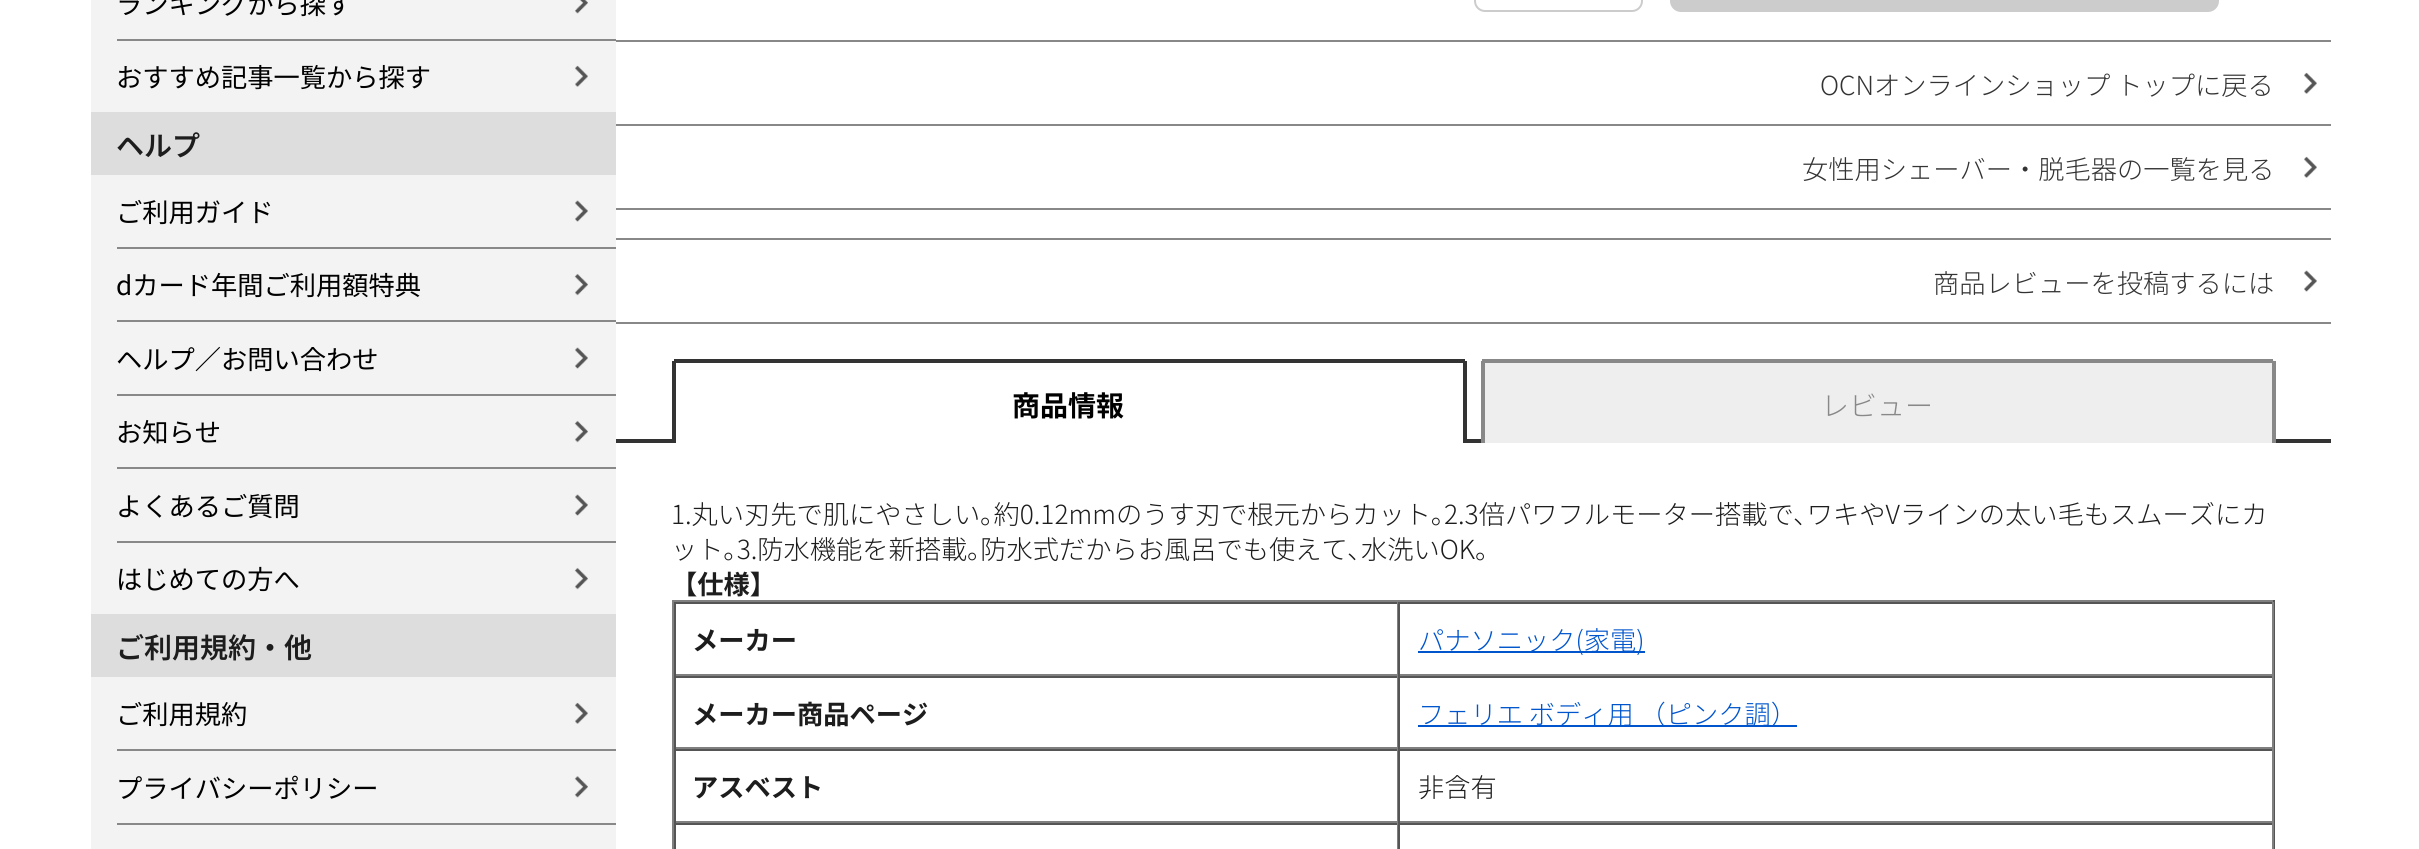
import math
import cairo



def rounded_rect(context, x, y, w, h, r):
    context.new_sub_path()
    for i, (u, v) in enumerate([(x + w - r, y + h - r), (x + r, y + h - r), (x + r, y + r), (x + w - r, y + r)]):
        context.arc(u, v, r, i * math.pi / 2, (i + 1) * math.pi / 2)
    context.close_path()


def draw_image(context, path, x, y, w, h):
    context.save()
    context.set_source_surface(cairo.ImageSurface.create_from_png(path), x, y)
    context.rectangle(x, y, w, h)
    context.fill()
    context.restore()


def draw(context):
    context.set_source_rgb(1, 1, 1)
    context.paint()
    context.set_source_rgb(243 / 255, 243 / 255, 243 / 255)
    context.rectangle(91, 0, 525, 849)
    context.fill()
    context.set_source_rgb(136 / 255, 136 / 255, 136 / 255)
    context.rectangle(117, 39, 499, 2)
    context.fill()
    draw_image(context, "images/1.png", 575, 0, 13, 14)
    draw_image(context, "images/2.png", 575, 65, 13, 22)
    context.set_source_rgb(221 / 255, 221 / 255, 221 / 255)
    context.rectangle(91, 112, 525, 63)
    context.fill()
    context.set_source_rgb(136 / 255, 136 / 255, 136 / 255)
    context.rectangle(117, 247, 499, 2)
    context.fill()
    draw_image(context, "images/3.png", 575, 200, 13, 22)
    context.rectangle(117, 320, 499, 2)
    context.fill()
    draw_image(context, "images/4.png", 574, 273, 14, 23)
    context.rectangle(117, 394, 499, 2)
    context.fill()
    draw_image(context, "images/3.png", 575, 347, 13, 22)
    context.rectangle(117, 467, 499, 2)
    context.fill()
    draw_image(context, "images/4.png", 574, 420, 14, 23)
    context.rectangle(117, 541, 499, 2)
    context.fill()
    draw_image(context, "images/3.png", 575, 494, 13, 22)
    draw_image(context, "images/5.png", 574, 567, 14, 23)
    context.set_source_rgb(221 / 255, 221 / 255, 221 / 255)
    context.rectangle(91, 614, 525, 63)
    context.fill()
    context.set_source_rgb(136 / 255, 136 / 255, 136 / 255)
    context.rectangle(117, 749, 499, 2)
    context.fill()
    draw_image(context, "images/2.png", 575, 702, 13, 22)
    context.rectangle(117, 823, 499, 2)
    context.fill()
    draw_image(context, "images/6.png", 574, 776, 14, 22)
    rounded_rect(context, 1475, -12, 167, 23, 10)
    context.set_source_rgb(204 / 255, 204 / 255, 204 / 255)
    context.stroke()
    rounded_rect(context, 1670, -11, 549, 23, 11)
    context.fill()
    context.set_source_rgb(136 / 255, 136 / 255, 136 / 255)
    context.rectangle(616, 40, 1715, 2)
    context.fill()
    draw_image(context, "images/7.png", 2304, 72, 13, 22)
    context.rectangle(616, 124, 1715, 2)
    context.fill()
    context.rectangle(616, 208, 1715, 2)
    context.fill()
    draw_image(context, "images/7.png", 2304, 156, 13, 22)
    context.rectangle(616, 238, 1715, 2)
    context.fill()
    context.rectangle(616, 322, 1715, 2)
    context.fill()
    draw_image(context, "images/8.png", 2304, 270, 13, 22)
    context.set_source_rgb(51 / 255, 51 / 255, 51 / 255)
    context.rectangle(616, 439, 1715, 4)
    context.fill()
    context.set_source_rgb(1, 1, 1)
    context.new_path()
    context.move_to(676, 359)
    context.line_to(1463, 359)
    context.curve_to(1465, 359, 1467, 361, 1467, 363)
    context.line_to(1467, 443)
    context.line_to(672, 443)
    context.line_to(672, 363)
    context.curve_to(672, 361, 674, 359, 676, 359)
    context.close_path()
    context.fill()
    context.set_source_rgb(51 / 255, 51 / 255, 51 / 255)
    context.rectangle(674, 359, 791, 4)
    context.fill()
    context.rectangle(1463, 361, 4, 82)
    context.fill()
    context.rectangle(672, 361, 4, 82)
    context.fill()
    context.set_source_rgb(238 / 255, 238 / 255, 238 / 255)
    context.new_path()
    context.move_to(1485, 359)
    context.line_to(2271, 359)
    context.curve_to(2273, 359, 2275, 361, 2275, 363)
    context.line_to(2275, 443)
    context.line_to(1481, 443)
    context.line_to(1481, 363)
    context.curve_to(1481, 361, 1483, 359, 1485, 359)
    context.close_path()
    context.fill()
    context.set_source_rgb(136 / 255, 136 / 255, 136 / 255)
    context.rectangle(1482, 359, 791, 4)
    context.fill()
    context.rectangle(2272, 361, 4, 82)
    context.fill()
    context.rectangle(1481, 361, 4, 82)
    context.fill()
    context.set_source_rgb(128 / 255, 128 / 255, 128 / 255)
    context.rectangle(672, 600, 1603, 2)
    context.fill()
    context.set_source_rgb(85 / 255, 85 / 255, 85 / 255)
    context.rectangle(2273, 600, 2, 249)
    context.fill()
    context.set_source_rgb(128 / 255, 128 / 255, 128 / 255)
    context.rectangle(672, 600, 2, 249)
    context.fill()
    context.set_source_rgb(85 / 255, 85 / 255, 85 / 255)
    context.rectangle(674, 602, 1599, 2)
    context.fill()
    context.set_source_rgb(128 / 255, 128 / 255, 128 / 255)
    context.rectangle(1397, 602, 1, 74)
    context.fill()
    context.rectangle(674, 674, 724, 2)
    context.fill()
    context.set_source_rgb(85 / 255, 85 / 255, 85 / 255)
    context.rectangle(674, 602, 2, 74)
    context.fill()
    context.set_source_rgb(128 / 255, 128 / 255, 128 / 255)
    context.rectangle(2272, 602, 2, 74)
    context.fill()
    context.rectangle(1398, 674, 875, 2)
    context.fill()
    context.set_source_rgb(85 / 255, 85 / 255, 85 / 255)
    context.rectangle(1398, 602, 2, 74)
    context.fill()
    context.set_source_rgb(0, 85 / 255, 204 / 255)
    context.rectangle(1418, 651, 227, 2)
    context.fill()
    context.set_source_rgb(85 / 255, 85 / 255, 85 / 255)
    context.rectangle(674, 676, 1599, 2)
    context.fill()
    context.set_source_rgb(128 / 255, 128 / 255, 128 / 255)
    context.rectangle(1397, 676, 1, 73)
    context.fill()
    context.rectangle(674, 747, 724, 2)
    context.fill()
    context.set_source_rgb(85 / 255, 85 / 255, 85 / 255)
    context.rectangle(674, 676, 2, 73)
    context.fill()
    context.set_source_rgb(128 / 255, 128 / 255, 128 / 255)
    context.rectangle(2272, 676, 2, 73)
    context.fill()
    context.rectangle(1398, 747, 875, 2)
    context.fill()
    context.set_source_rgb(85 / 255, 85 / 255, 85 / 255)
    context.rectangle(1398, 676, 2, 73)
    context.fill()
    context.set_source_rgb(0, 85 / 255, 204 / 255)
    context.rectangle(1418, 725, 379, 2)
    context.fill()
    context.set_source_rgb(85 / 255, 85 / 255, 85 / 255)
    context.rectangle(674, 749, 1599, 2)
    context.fill()
    context.set_source_rgb(128 / 255, 128 / 255, 128 / 255)
    context.rectangle(1397, 749, 1, 74)
    context.fill()
    context.rectangle(674, 821, 724, 2)
    context.fill()
    context.set_source_rgb(85 / 255, 85 / 255, 85 / 255)
    context.rectangle(674, 749, 2, 74)
    context.fill()
    context.set_source_rgb(128 / 255, 128 / 255, 128 / 255)
    context.rectangle(2272, 749, 2, 74)
    context.fill()
    context.rectangle(1398, 821, 875, 2)
    context.fill()
    context.set_source_rgb(85 / 255, 85 / 255, 85 / 255)
    context.rectangle(1398, 749, 2, 74)
    context.fill()
    context.rectangle(674, 823, 1599, 2)
    context.fill()
    context.set_source_rgb(128 / 255, 128 / 255, 128 / 255)
    context.rectangle(1397, 823, 1, 26)
    context.fill()
    context.set_source_rgb(85 / 255, 85 / 255, 85 / 255)
    context.rectangle(674, 823, 2, 26)
    context.fill()
    context.set_source_rgb(128 / 255, 128 / 255, 128 / 255)
    context.rectangle(2272, 823, 2, 26)
    context.fill()
    context.set_source_rgb(85 / 255, 85 / 255, 85 / 255)
    context.rectangle(1398, 823, 2, 26)
    context.fill()
    context.select_font_face("Noto Sans JP")
    context.set_font_size(26.25)
    context.set_source_rgb(0, 0, 0)
    context.move_to(116, 14)
    context.show_text("ランキングから探す")
    context.move_to(116, 87)
    context.show_text("おすすめ記事一覧から探す")
    context.select_font_face("Noto Sans JP SemiBold")
    context.set_font_size(28)
    context.set_source_rgb(29 / 255, 29 / 255, 29 / 255)
    context.move_to(116, 156)
    context.show_text("ヘルプ")
    context.select_font_face("Noto Sans JP")
    context.set_font_size(26.25)
    context.set_source_rgb(0, 0, 0)
    context.move_to(116, 222)
    context.show_text("ご利用ガイド")
    context.move_to(116, 295)
    context.show_text("dカード年間ご利用額特典")
    context.move_to(116, 369)
    context.show_text("ヘルプ／お問い合わせ")
    context.move_to(116, 442)
    context.show_text("お知らせ")
    context.move_to(116, 516)
    context.show_text("よくあるご質問")
    context.move_to(116, 589)
    context.show_text("はじめての方へ")
    context.select_font_face("Noto Sans JP SemiBold")
    context.set_font_size(28)
    context.set_source_rgb(29 / 255, 29 / 255, 29 / 255)
    context.move_to(116, 658)
    context.show_text("ご利用規約・他")
    context.select_font_face("Noto Sans JP")
    context.set_font_size(26.25)
    context.set_source_rgb(0, 0, 0)
    context.move_to(116, 724)
    context.show_text("ご利用規約")
    context.move_to(116, 798)
    context.show_text("プライバシーポリシー")
    context.select_font_face("Noto Sans JP Light")
    context.set_source_rgb(51 / 255, 51 / 255, 51 / 255)
    context.move_to(1820, 95)
    context.show_text("OCNオンラインショップ トップに戻る")
    context.move_to(1802, 179)
    context.show_text("女性用シェーバー・脱毛器の一覧を見る")
    context.move_to(1933, 293)
    context.show_text("商品レビューを投稿するには")
    context.select_font_face("Noto Sans JP", cairo.FontSlant.NORMAL, cairo.FontWeight.BOLD)
    context.set_font_size(28)
    context.set_source_rgb(0, 0, 0)
    context.move_to(1012, 416)
    context.show_text("商品情報")
    context.select_font_face("Noto Sans JP Light")
    context.set_source_rgb(136 / 255, 136 / 255, 136 / 255)
    context.move_to(1821, 416)
    context.show_text("レビュー")
    context.set_font_size(26.25)
    context.set_source_rgb(29 / 255, 29 / 255, 29 / 255)
    context.move_to(671, 524)
    context.show_text("1.丸い刃先で肌にやさしい｡約0.12mmのうす刃で根元からカット｡2.3倍パワフルモーター搭載で､ワキやVラインの太い毛もスムーズにカ")
    context.move_to(671, 559)
    context.show_text("ット｡3.防水機能を新搭載｡防水式だからお風呂でも使えて､水洗いOK｡")
    context.select_font_face("Noto Sans JP", cairo.FontSlant.NORMAL, cairo.FontWeight.BOLD)
    context.move_to(671, 594)
    context.show_text("【仕様】")
    context.move_to(692, 650)
    context.show_text("メーカー")
    context.select_font_face("Noto Sans JP Light")
    context.set_source_rgb(0, 85 / 255, 204 / 255)
    context.move_to(1418, 650)
    context.show_text("パナソニック(家電)")
    context.select_font_face("Noto Sans JP", cairo.FontSlant.NORMAL, cairo.FontWeight.BOLD)
    context.set_source_rgb(29 / 255, 29 / 255, 29 / 255)
    context.move_to(692, 724)
    context.show_text("メーカー商品ページ")
    context.select_font_face("Noto Sans JP Light")
    context.set_source_rgb(0, 85 / 255, 204 / 255)
    context.move_to(1418, 724)
    context.show_text("フェリエ ボディ用 （ピンク調）")
    context.select_font_face("Noto Sans JP", cairo.FontSlant.NORMAL, cairo.FontWeight.BOLD)
    context.set_source_rgb(29 / 255, 29 / 255, 29 / 255)
    context.move_to(692, 797)
    context.show_text("アスベスト")
    context.select_font_face("Noto Sans JP Light")
    context.move_to(1418, 797)
    context.show_text("非含有")


surface = cairo.ImageSurface(cairo.Format.RGB24, 2419, 849)
context = cairo.Context(surface)
options = cairo.FontOptions()
options.set_hint_metrics(cairo.HintMetrics.OFF)
options.set_hint_style(cairo.HintStyle.NONE)
context.set_font_options(options)
context.set_miter_limit(4)
draw(context)
surface.write_to_png("out.png")
